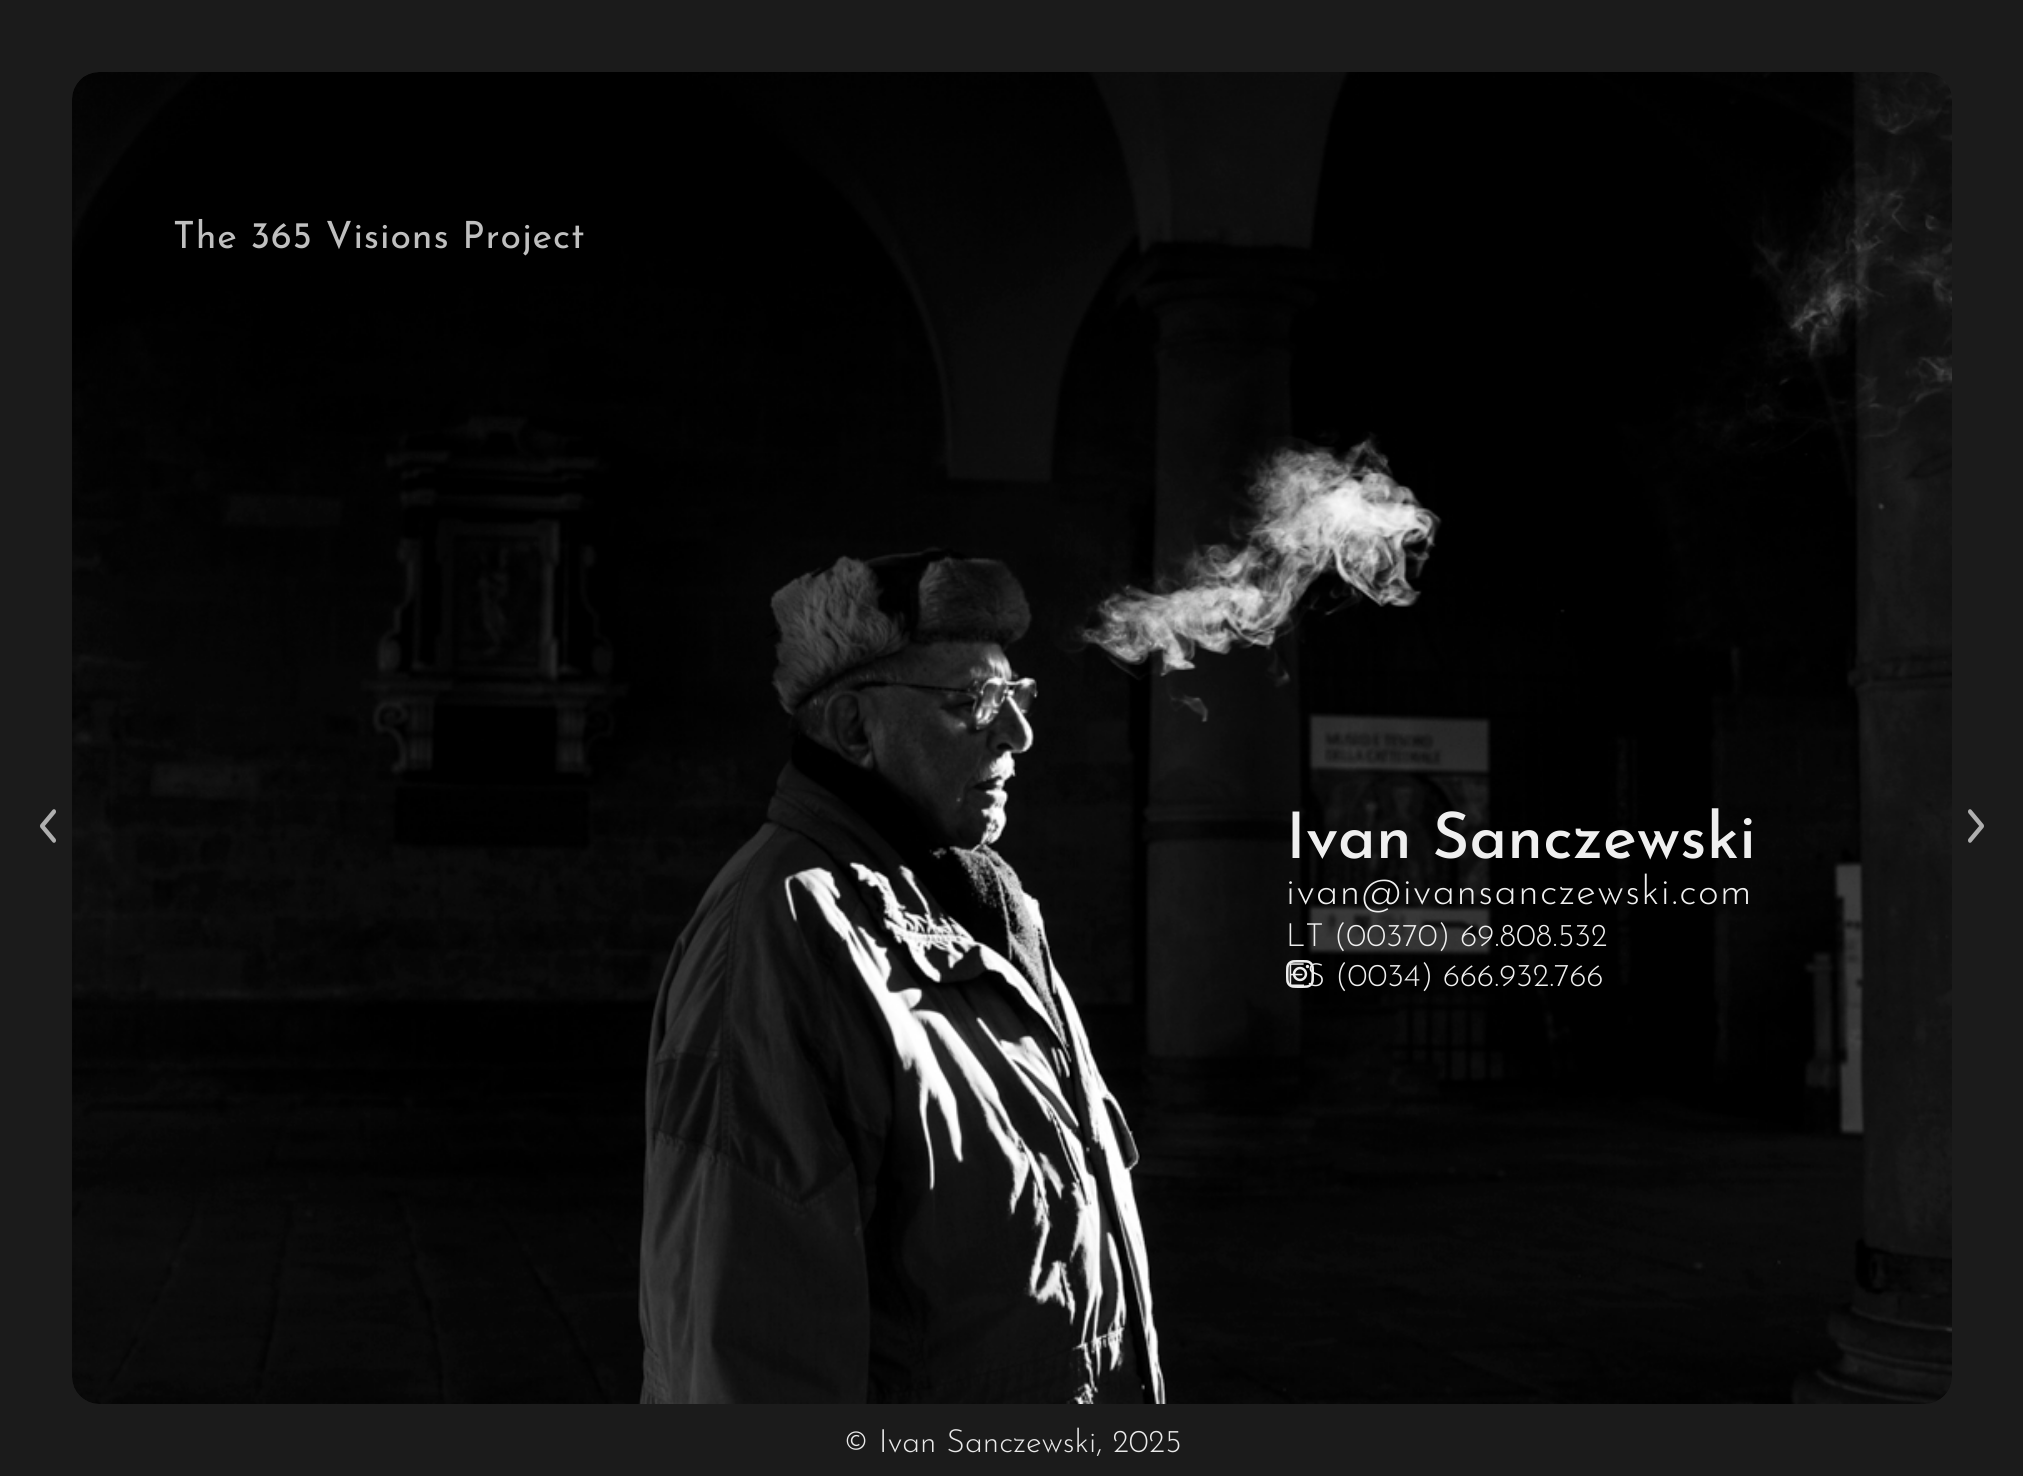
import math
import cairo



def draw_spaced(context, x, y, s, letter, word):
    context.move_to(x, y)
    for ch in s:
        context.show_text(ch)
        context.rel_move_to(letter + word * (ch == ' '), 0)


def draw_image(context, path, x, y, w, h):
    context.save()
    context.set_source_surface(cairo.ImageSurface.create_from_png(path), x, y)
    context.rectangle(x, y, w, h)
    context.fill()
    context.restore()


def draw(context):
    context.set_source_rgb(27 / 255, 27 / 255, 27 / 255)
    context.paint()
    draw_image(context, "images/1.png", 72, 72, 1880, 1332)
    draw_image(context, "images/2.png", 40, 809, 16, 34)
    draw_image(context, "images/3.png", 1968, 809, 16, 34)
    context.select_font_face("Josefin Sans")
    context.set_font_size(37.5)
    context.set_source_rgb(191 / 255, 191 / 255, 191 / 255)
    draw_spaced(context, 173, 248, "The 365 Visions Project", 0.9, 0)
    context.select_font_face("Josefin Sans Medium")
    context.set_font_size(64)
    context.set_source_rgb(239 / 255, 239 / 255, 239 / 255)
    context.move_to(1286, 858)
    context.show_text("Ivan Sanczewski")
    context.select_font_face("Josefin Sans Light")
    context.set_font_size(40)
    draw_spaced(context, 1286, 904, "ivan@ivansanczewski.com", 1.4, 0)
    context.set_font_size(32)
    context.move_to(1286, 946)
    context.show_text("LT (00370) 69.808.532")
    context.move_to(1286, 986)
    context.show_text("ES (0034) 666.932.766")
    draw_image(context, "images/4.png", 1286, 960, 28, 28)
    context.set_source_rgb(233 / 255, 233 / 255, 233 / 255)
    context.move_to(843, 1452)
    context.show_text("© Ivan Sanczewski, 2025")


surface = cairo.ImageSurface(cairo.Format.RGB24, 2023, 1476)
context = cairo.Context(surface)
options = cairo.FontOptions()
options.set_hint_metrics(cairo.HintMetrics.OFF)
options.set_hint_style(cairo.HintStyle.NONE)
context.set_font_options(options)
context.set_miter_limit(4)
draw(context)
surface.write_to_png("out.png")
